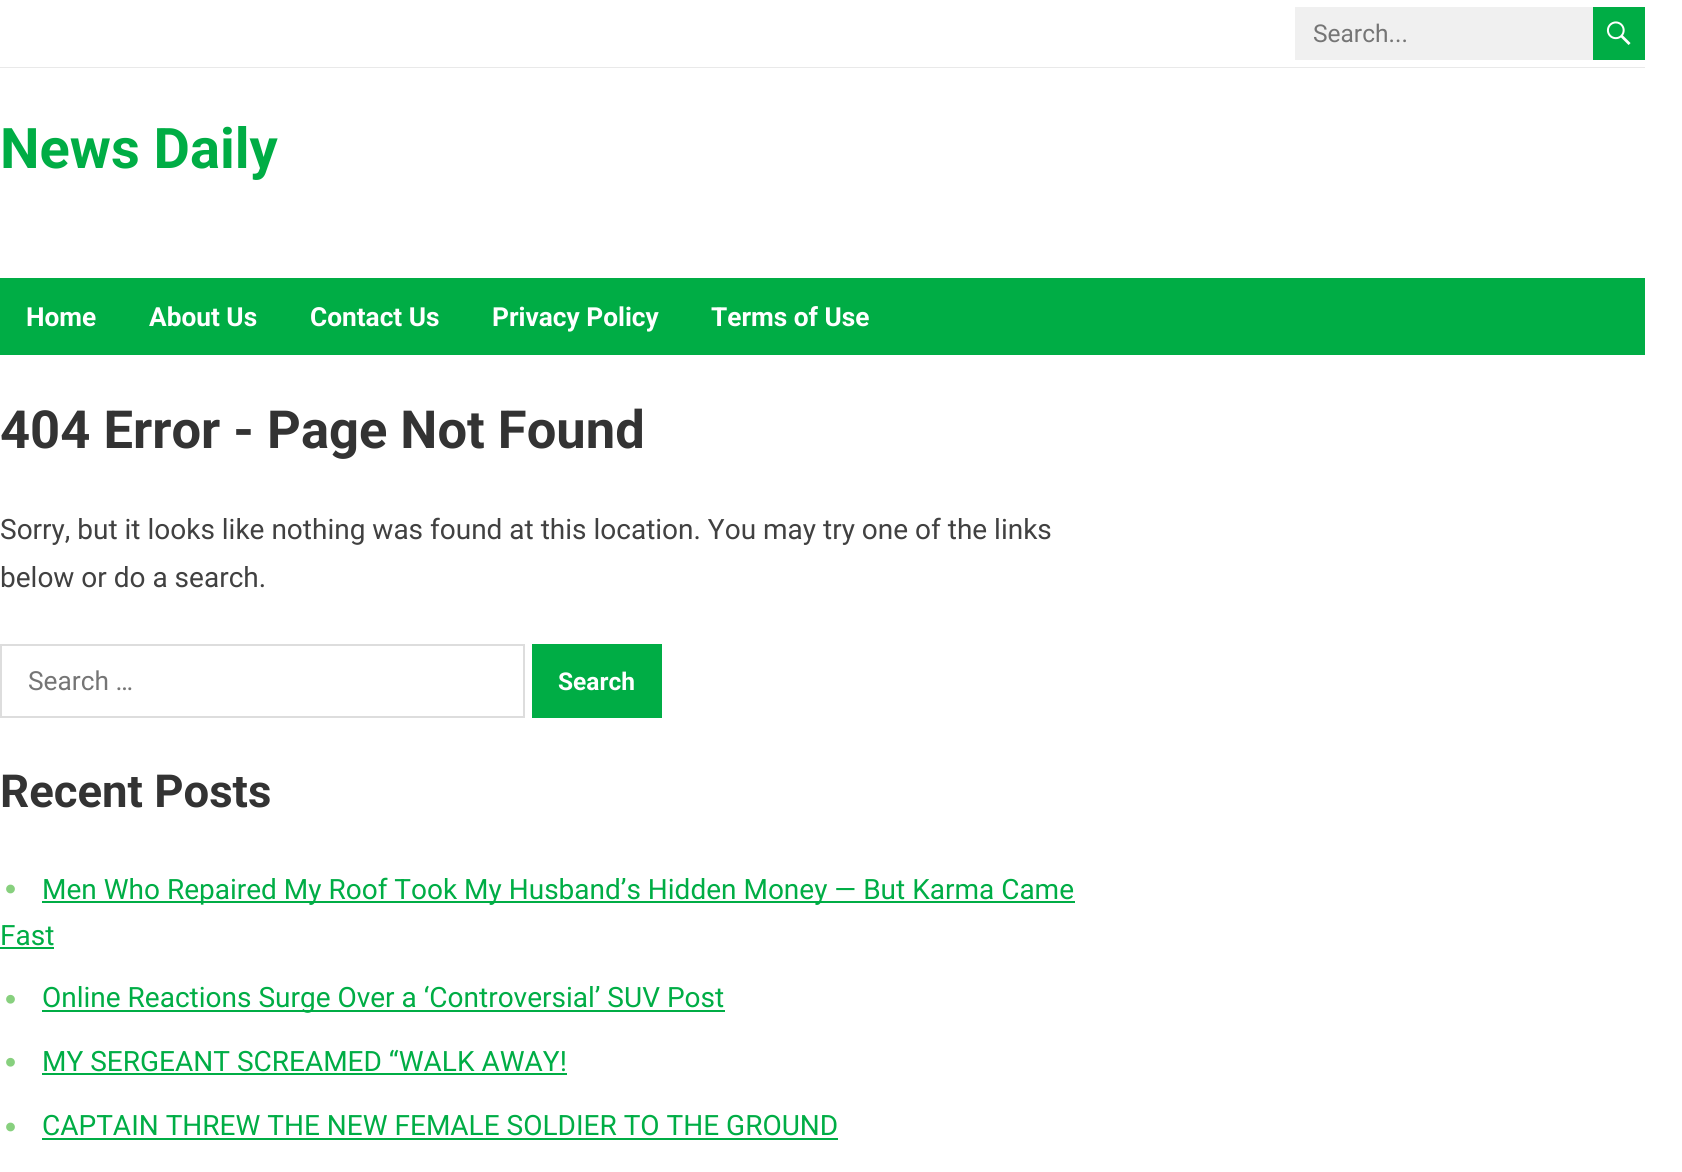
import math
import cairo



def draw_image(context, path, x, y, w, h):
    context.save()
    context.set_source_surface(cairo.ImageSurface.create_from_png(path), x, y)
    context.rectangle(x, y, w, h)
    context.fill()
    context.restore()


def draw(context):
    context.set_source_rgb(1, 1, 1)
    context.paint()
    context.set_source_rgb(233 / 255, 233 / 255, 233 / 255)
    context.rectangle(0, 67, 1645, 1)
    context.fill()
    context.set_source_rgb(240 / 255, 240 / 255, 240 / 255)
    context.rectangle(1295, 7, 298, 53)
    context.fill()
    context.set_source_rgb(0, 173 / 255, 69 / 255)
    context.rectangle(1593, 7, 52, 53)
    context.fill()
    draw_image(context, "images/1.png", 1606, 21, 25, 24)
    context.rectangle(0, 278, 1645, 77)
    context.fill()
    context.rectangle(1, 645, 523, 72)
    context.set_source_rgb(221 / 255, 221 / 255, 221 / 255)
    context.stroke()
    context.set_source_rgb(0, 173 / 255, 69 / 255)
    context.rectangle(532, 644, 130, 74)
    context.fill()
    draw_image(context, "images/2.png", 6, 884, 9, 10)
    context.rectangle(42, 901, 1033, 2)
    context.fill()
    context.rectangle(0, 947, 54, 2)
    context.fill()
    draw_image(context, "images/3.png", 6, 994, 9, 10)
    context.rectangle(42, 1010, 683, 2)
    context.fill()
    draw_image(context, "images/3.png", 6, 1057, 9, 10)
    context.rectangle(42, 1073, 525, 2)
    context.fill()
    draw_image(context, "images/2.png", 6, 1122, 9, 10)
    context.rectangle(42, 1138, 796, 2)
    context.fill()
    context.select_font_face("Roboto")
    context.set_font_size(24.5)
    context.set_source_rgb(117 / 255, 117 / 255, 117 / 255)
    context.move_to(1313, 42)
    context.show_text("Search...")
    context.select_font_face("Roboto", cairo.FontSlant.NORMAL, cairo.FontWeight.BOLD)
    context.set_font_size(56)
    context.set_source_rgb(0, 173 / 255, 69 / 255)
    context.move_to(0, 168)
    context.show_text("News Daily")
    context.set_font_size(26.25)
    context.set_source_rgb(1, 1, 1)
    context.move_to(26, 326)
    context.show_text("Home")
    context.move_to(149, 326)
    context.show_text("About Us")
    context.move_to(310, 326)
    context.show_text("Contact Us")
    context.move_to(492, 326)
    context.show_text("Privacy Policy")
    context.move_to(711, 326)
    context.show_text("Terms of Use")
    context.set_font_size(52.5)
    context.set_source_rgb(51 / 255, 51 / 255, 51 / 255)
    context.move_to(0, 448)
    context.show_text("404 Error - Page Not Found")
    context.select_font_face("Roboto")
    context.set_font_size(28)
    context.set_source_rgb(65 / 255, 65 / 255, 65 / 255)
    context.move_to(0, 539)
    context.show_text("Sorry, but it looks like nothing was found at this location. You may try one of the links")
    context.move_to(0, 587)
    context.show_text("below or do a search.")
    context.set_font_size(26.25)
    context.set_source_rgb(117 / 255, 117 / 255, 117 / 255)
    context.move_to(28, 690)
    context.show_text("Search …")
    context.select_font_face("Roboto", cairo.FontSlant.NORMAL, cairo.FontWeight.BOLD)
    context.set_font_size(24.5)
    context.set_source_rgb(1, 1, 1)
    context.move_to(558, 690)
    context.show_text("Search")
    context.set_font_size(45.5)
    context.set_source_rgb(51 / 255, 51 / 255, 51 / 255)
    context.move_to(0, 807)
    context.show_text("Recent Posts")
    context.select_font_face("Roboto")
    context.set_font_size(28)
    context.set_source_rgb(0, 173 / 255, 69 / 255)
    context.move_to(42, 899)
    context.show_text("Men Who Repaired My Roof Took My Husband’s Hidden Money — But Karma Came")
    context.move_to(0, 945)
    context.show_text("Fast")
    context.move_to(42, 1007)
    context.show_text("Online Reactions Surge Over a ‘Controversial’ SUV Post")
    context.move_to(42, 1071)
    context.show_text("MY SERGEANT SCREAMED “WALK AWAY!")
    context.move_to(42, 1135)
    context.show_text("CAPTAIN THREW THE NEW FEMALE SOLDIER TO THE GROUND")


surface = cairo.ImageSurface(cairo.Format.RGB24, 1682, 1172)
context = cairo.Context(surface)
options = cairo.FontOptions()
options.set_hint_metrics(cairo.HintMetrics.OFF)
options.set_hint_style(cairo.HintStyle.NONE)
context.set_font_options(options)
context.set_miter_limit(4)
draw(context)
surface.write_to_png("out.png")
